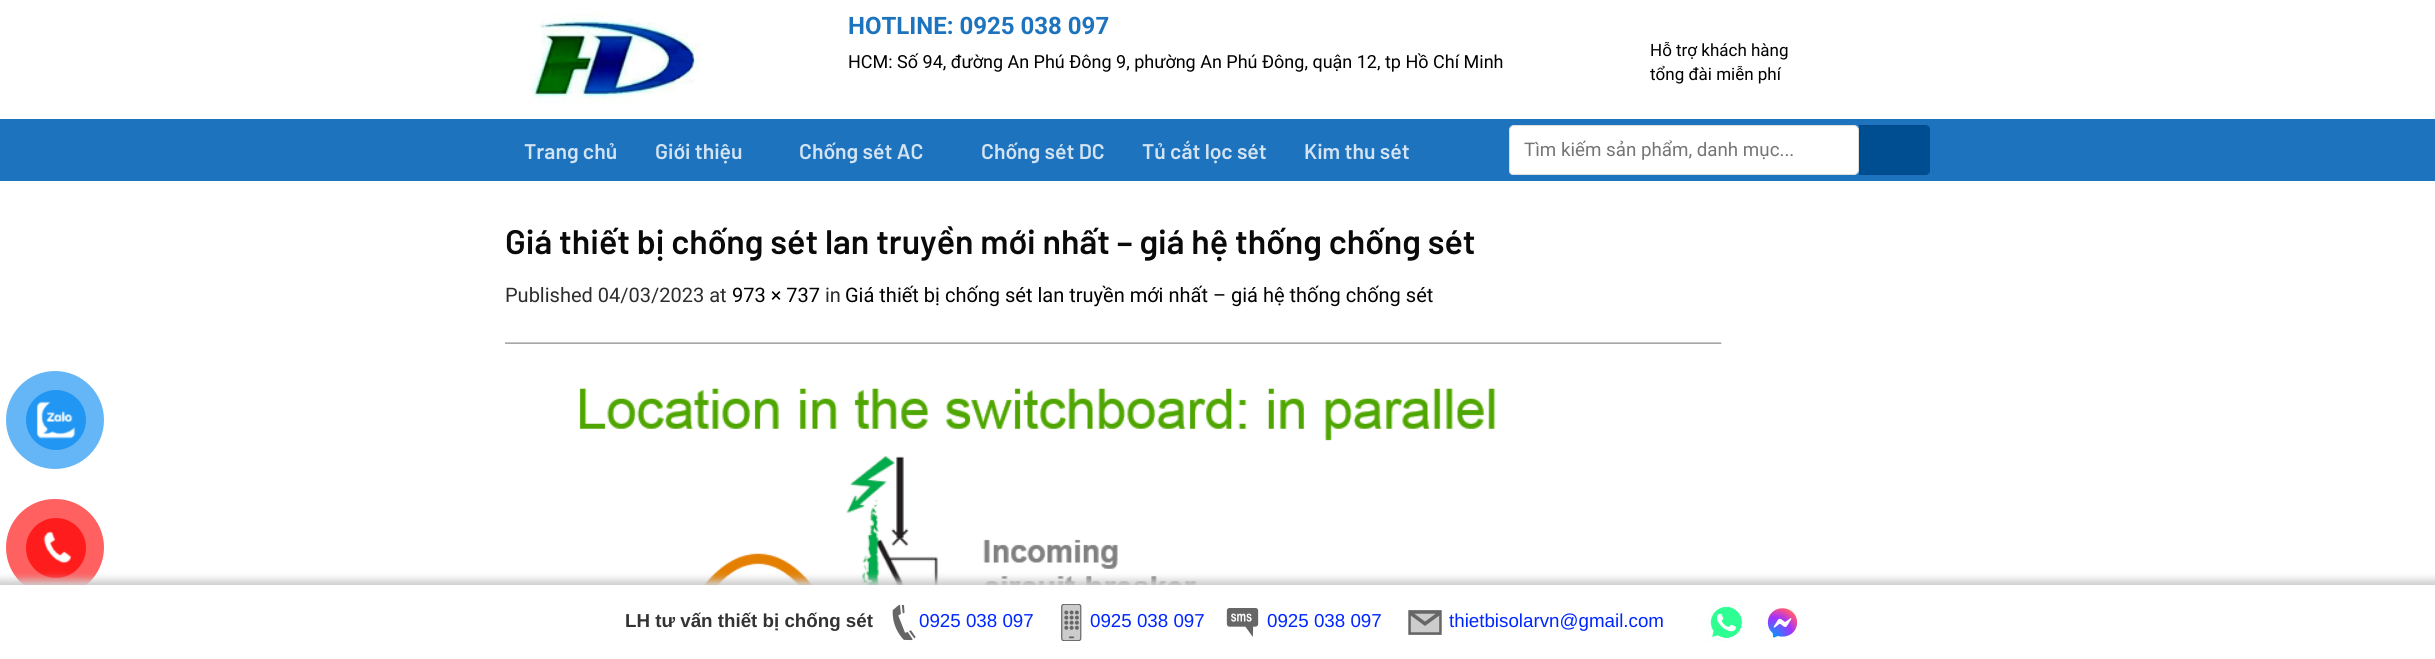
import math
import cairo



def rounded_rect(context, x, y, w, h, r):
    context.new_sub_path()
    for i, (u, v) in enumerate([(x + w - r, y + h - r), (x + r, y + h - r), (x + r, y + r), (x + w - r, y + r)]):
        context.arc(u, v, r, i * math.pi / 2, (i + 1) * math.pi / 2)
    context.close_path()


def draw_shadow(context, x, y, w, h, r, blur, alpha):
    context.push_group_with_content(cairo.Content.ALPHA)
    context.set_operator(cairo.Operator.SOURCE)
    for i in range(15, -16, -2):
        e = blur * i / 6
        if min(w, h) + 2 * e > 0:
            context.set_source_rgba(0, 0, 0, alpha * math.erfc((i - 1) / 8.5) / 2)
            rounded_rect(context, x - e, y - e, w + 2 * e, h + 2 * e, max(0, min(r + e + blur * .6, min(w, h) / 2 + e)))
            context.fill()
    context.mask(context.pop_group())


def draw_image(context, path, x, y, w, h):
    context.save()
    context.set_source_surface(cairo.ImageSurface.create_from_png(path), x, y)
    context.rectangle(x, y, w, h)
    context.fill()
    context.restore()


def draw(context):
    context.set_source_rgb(1, 1, 1)
    context.paint()
    draw_image(context, "images/1.png", 529, 13, 171, 91)
    context.set_source_rgb(30 / 255, 115 / 255, 190 / 255)
    context.rectangle(0, 119, 2435, 62)
    context.fill()
    context.set_source_rgb(1, 1, 1)
    context.new_path()
    context.move_to(1514, 125.5)
    context.line_to(1854, 125.5)
    context.curve_to(1856.5, 125.5, 1858.5, 127.5, 1858.5, 130)
    context.line_to(1858.5, 170)
    context.curve_to(1858.5, 172.5, 1856.5, 174.5, 1854, 174.5)
    context.line_to(1513, 174.5)
    context.curve_to(1511, 174.5, 1509.5, 173, 1509.5, 171)
    context.line_to(1509.5, 130)
    context.curve_to(1509.5, 127.5, 1511.5, 125.5, 1514, 125.5)
    context.close_path()
    context.fill_preserve()
    context.set_source_rgb(221 / 255, 221 / 255, 221 / 255)
    context.set_line_width(1)
    context.stroke()
    context.set_source_rgb(0, 78 / 255, 146 / 255)
    context.new_path()
    context.move_to(1859, 125)
    context.line_to(1925, 125)
    context.curve_to(1928, 125, 1930, 127, 1930, 130)
    context.line_to(1930, 170)
    context.curve_to(1930, 173, 1928, 175, 1925, 175)
    context.line_to(1859, 175)
    context.close_path()
    context.fill()
    context.rectangle(1859.5, 125.5, 70, 49)
    context.set_source_rgba(0, 0, 0, 0.05)
    context.stroke()
    draw_image(context, "images/2.png", 505, 342, 1217, 243)
    context.set_source_rgb(100 / 255, 182 / 255, 247 / 255)
    context.arc(55, 420, 49, 0, 2 * math.pi)
    context.fill()
    context.set_source_rgb(33 / 255, 150 / 255, 243 / 255)
    context.arc(56, 420, 30, 0, 2 * math.pi)
    context.fill()
    draw_image(context, "images/3.png", 36, 401, 40, 38)
    context.set_source_rgb(1, 96 / 255, 96 / 255)
    rounded_rect(context, 6, 499, 98, 97, 48.5)
    context.fill()
    context.set_source_rgb(1, 28 / 255, 28 / 255)
    context.arc(56, 548, 30, 0, 2 * math.pi)
    context.fill()
    draw_image(context, "images/4.png", 43, 531, 29, 33)
    context.set_source_rgb(204 / 255, 204 / 255, 204 / 255)
    draw_shadow(context, -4, 580, 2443, 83, 0, 4, 1)
    context.set_source_rgb(1, 1, 1)
    context.rectangle(0, 585, 2435, 74)
    context.fill()
    draw_image(context, "images/5.png", 892, 605, 24, 36)
    draw_image(context, "images/6.png", 1061, 604, 21, 37)
    draw_image(context, "images/7.png", 1226, 608, 33, 29)
    draw_image(context, "images/8.png", 1408, 610, 34, 25)
    draw_image(context, "images/9.png", 1707, 603, 38, 39)
    draw_image(context, "images/10.png", 1767, 608, 31, 30)
    context.select_font_face("Roboto", cairo.FontSlant.NORMAL, cairo.FontWeight.BOLD)
    context.set_font_size(24)
    context.set_source_rgb(30 / 255, 115 / 255, 190 / 255)
    context.move_to(848, 34)
    context.show_text("HOTLINE: 0925 038 097")
    context.select_font_face("Roboto")
    context.set_font_size(18)
    context.set_source_rgb(0, 0, 0)
    context.move_to(848, 68)
    context.show_text("HCM: Số 94, đường An Phú Đông 9, phường An Phú Đông, quận 12, tp Hồ Chí Minh")
    context.set_font_size(17)
    context.move_to(1650, 56)
    context.show_text("Hỗ trợ khách hàng")
    context.move_to(1650, 80)
    context.show_text("tổng đài miễn phí")
    context.select_font_face("Barlow SemiBold")
    context.set_font_size(21.25)
    context.set_source_rgb(210 / 255, 227 / 255, 242 / 255)
    context.move_to(524, 159)
    context.show_text("Trang chủ")
    context.move_to(655, 159)
    context.show_text("Giới thiệu")
    context.move_to(799, 159)
    context.show_text("Chống sét AC")
    context.move_to(981, 159)
    context.show_text("Chống sét DC")
    context.move_to(1142, 159)
    context.show_text("Tủ cắt lọc sét")
    context.move_to(1304, 159)
    context.show_text("Kim thu sét")
    context.select_font_face("Roboto")
    context.set_font_size(18.75)
    context.set_source_rgb(117 / 255, 117 / 255, 117 / 255)
    context.move_to(1524, 156)
    context.show_text("Tìm kiếm sản phẩm, danh mục...")
    context.select_font_face("Barlow SemiBold")
    context.set_font_size(34)
    context.set_source_rgb(10 / 255, 10 / 255, 10 / 255)
    context.move_to(505, 254)
    context.show_text("Giá thiết bị chống sét lan truyền mới nhất – giá hệ thống chống sét")
    context.select_font_face("Roboto")
    context.set_font_size(20)
    context.set_source_rgb(45 / 255, 45 / 255, 45 / 255)
    context.move_to(505, 302)
    context.show_text("Published 04/03/2023 at")
    context.set_source_rgb(0, 0, 0)
    context.move_to(732, 302)
    context.show_text("973 × 737")
    context.set_source_rgb(45 / 255, 45 / 255, 45 / 255)
    context.move_to(825, 302)
    context.show_text("in")
    context.set_source_rgb(0, 0, 0)
    context.move_to(845, 302)
    context.show_text("Giá thiết bị chống sét lan truyền mới nhất – giá hệ thống chống sét")
    context.select_font_face("Liberation Sans", cairo.FontSlant.NORMAL, cairo.FontWeight.BOLD)
    context.set_font_size(18.75)
    context.set_source_rgb(51 / 255, 51 / 255, 51 / 255)
    context.move_to(625, 627)
    context.show_text("LH tư vấn thiết bị chống sét")
    context.select_font_face("Liberation Sans")
    context.set_source_rgb(0, 38 / 255, 1)
    context.move_to(919, 627)
    context.show_text("0925 038 097")
    context.move_to(1090, 627)
    context.show_text("0925 038 097")
    context.move_to(1267, 627)
    context.show_text("0925 038 097")
    context.move_to(1449, 627)
    context.show_text("thietbisolarvn@gmail.com")


surface = cairo.ImageSurface(cairo.Format.RGB24, 2435, 659)
context = cairo.Context(surface)
options = cairo.FontOptions()
options.set_hint_metrics(cairo.HintMetrics.OFF)
options.set_hint_style(cairo.HintStyle.NONE)
context.set_font_options(options)
context.set_miter_limit(4)
draw(context)
surface.write_to_png("out.png")
